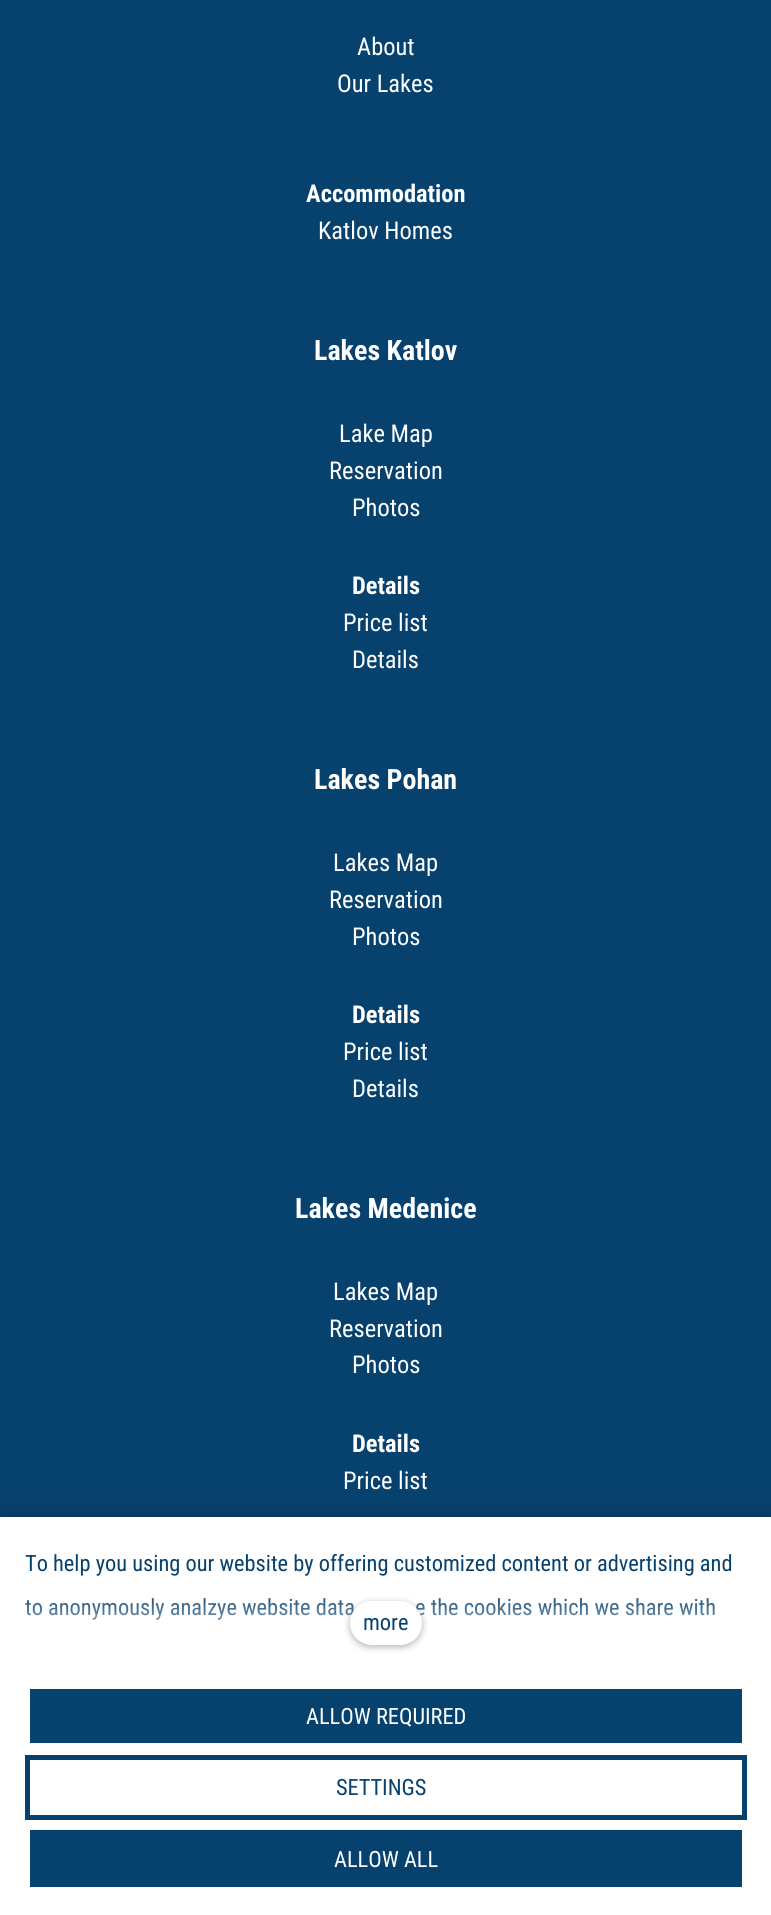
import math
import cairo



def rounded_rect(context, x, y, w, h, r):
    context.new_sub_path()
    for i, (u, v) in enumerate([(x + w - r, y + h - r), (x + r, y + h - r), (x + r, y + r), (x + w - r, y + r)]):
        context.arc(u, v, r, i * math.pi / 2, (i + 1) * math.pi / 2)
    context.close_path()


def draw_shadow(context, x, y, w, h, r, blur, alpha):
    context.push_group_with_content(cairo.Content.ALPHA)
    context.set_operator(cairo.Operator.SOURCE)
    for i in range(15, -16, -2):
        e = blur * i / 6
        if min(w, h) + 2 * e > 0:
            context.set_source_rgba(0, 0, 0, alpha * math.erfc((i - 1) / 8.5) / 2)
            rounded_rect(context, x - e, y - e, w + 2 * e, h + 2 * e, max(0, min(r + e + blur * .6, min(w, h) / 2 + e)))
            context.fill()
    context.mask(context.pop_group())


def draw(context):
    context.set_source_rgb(7 / 255, 65 / 255, 110 / 255)
    context.paint()
    context.set_source_rgb(0, 0, 0)
    draw_shadow(context, 0, 1517, 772, 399, 0, 10.5, 0.25)
    context.set_source_rgb(1, 1, 1)
    context.rectangle(0, 1517, 771, 398)
    context.fill()
    context.set_source_rgb(7 / 255, 65 / 255, 110 / 255)
    context.rectangle(30, 1689, 712, 54)
    context.fill()
    context.rectangle(27.5, 1757.5, 717, 60)
    context.set_line_width(5)
    context.stroke()
    context.rectangle(30, 1830, 712, 57)
    context.fill()
    context.select_font_face("Roboto Condensed")
    context.set_font_size(24.5)
    context.set_source_rgb(1, 1, 1)
    context.move_to(357, 55)
    context.show_text("About")
    context.move_to(337, 92)
    context.show_text("Our Lakes")
    context.select_font_face("Roboto Condensed", cairo.FontSlant.NORMAL, cairo.FontWeight.BOLD)
    context.move_to(306, 202)
    context.show_text("Accommodation")
    context.select_font_face("Roboto Condensed")
    context.move_to(318, 239)
    context.show_text("Katlov Homes")
    context.select_font_face("Roboto Condensed", cairo.FontSlant.NORMAL, cairo.FontWeight.BOLD)
    context.set_font_size(28)
    context.move_to(314, 360)
    context.show_text("Lakes Katlov")
    context.select_font_face("Roboto Condensed")
    context.set_font_size(24.5)
    context.move_to(339, 442)
    context.show_text("Lake Map")
    context.move_to(329, 479)
    context.show_text("Reservation")
    context.move_to(352, 516)
    context.show_text("Photos")
    context.select_font_face("Roboto Condensed", cairo.FontSlant.NORMAL, cairo.FontWeight.BOLD)
    context.move_to(352, 594)
    context.show_text("Details")
    context.select_font_face("Roboto Condensed")
    context.move_to(343, 631)
    context.show_text("Price list")
    context.move_to(352, 668)
    context.show_text("Details")
    context.select_font_face("Roboto Condensed", cairo.FontSlant.NORMAL, cairo.FontWeight.BOLD)
    context.set_font_size(28)
    context.move_to(314, 789)
    context.show_text("Lakes Pohan")
    context.select_font_face("Roboto Condensed")
    context.set_font_size(24.5)
    context.move_to(333, 871)
    context.show_text("Lakes Map")
    context.move_to(329, 908)
    context.show_text("Reservation")
    context.move_to(352, 945)
    context.show_text("Photos")
    context.select_font_face("Roboto Condensed", cairo.FontSlant.NORMAL, cairo.FontWeight.BOLD)
    context.move_to(352, 1023)
    context.show_text("Details")
    context.select_font_face("Roboto Condensed")
    context.move_to(343, 1060)
    context.show_text("Price list")
    context.move_to(352, 1097)
    context.show_text("Details")
    context.select_font_face("Roboto Condensed", cairo.FontSlant.NORMAL, cairo.FontWeight.BOLD)
    context.set_font_size(28)
    context.move_to(295, 1218)
    context.show_text("Lakes Medenice")
    context.select_font_face("Roboto Condensed")
    context.set_font_size(24.5)
    context.move_to(333, 1300)
    context.show_text("Lakes Map")
    context.move_to(329, 1337)
    context.show_text("Reservation")
    context.move_to(352, 1373)
    context.show_text("Photos")
    context.select_font_face("Roboto Condensed", cairo.FontSlant.NORMAL, cairo.FontWeight.BOLD)
    context.move_to(352, 1452)
    context.show_text("Details")
    context.select_font_face("Roboto Condensed")
    context.move_to(343, 1489)
    context.show_text("Price list")
    context.set_font_size(22.4)
    context.set_source_rgb(7 / 255, 65 / 255, 110 / 255)
    context.move_to(25, 1571)
    context.show_text("To help you using our website by offering customized content or advertising and")
    context.move_to(25, 1615)
    context.show_text("to anonymously analzye website data")
    context.move_to(415, 1615)
    context.show_text("e the cookies which we share with")
    gradient = cairo.LinearGradient(386, 1659, 386, 1591)
    gradient.add_color_stop_rgba(0, 1, 1, 1, 1)
    gradient.add_color_stop_rgba(1, 1, 1, 1, 0)
    context.set_source(gradient)
    context.rectangle(25, 1598, 690, 22)
    context.fill()
    context.set_source_rgb(0, 0, 0)
    draw_shadow(context, 350, 1603, 72, 44, 22, 3.5, 0.3)
    context.set_source_rgb(1, 1, 1)
    rounded_rect(context, 350, 1601, 72, 44, 22)
    context.fill()
    context.set_source_rgb(7 / 255, 65 / 255, 110 / 255)
    context.move_to(363, 1630)
    context.show_text("more")
    context.set_source_rgb(1, 1, 1)
    context.move_to(306, 1724)
    context.show_text("ALLOW REQUIRED")
    context.set_source_rgb(7 / 255, 65 / 255, 110 / 255)
    context.move_to(336, 1795)
    context.show_text("SETTINGS")
    context.set_source_rgb(1, 1, 1)
    context.move_to(334, 1867)
    context.show_text("ALLOW ALL")


surface = cairo.ImageSurface(cairo.Format.RGB24, 771, 1915)
context = cairo.Context(surface)
options = cairo.FontOptions()
options.set_hint_metrics(cairo.HintMetrics.OFF)
options.set_hint_style(cairo.HintStyle.NONE)
context.set_font_options(options)
context.set_miter_limit(4)
draw(context)
surface.write_to_png("out.png")
